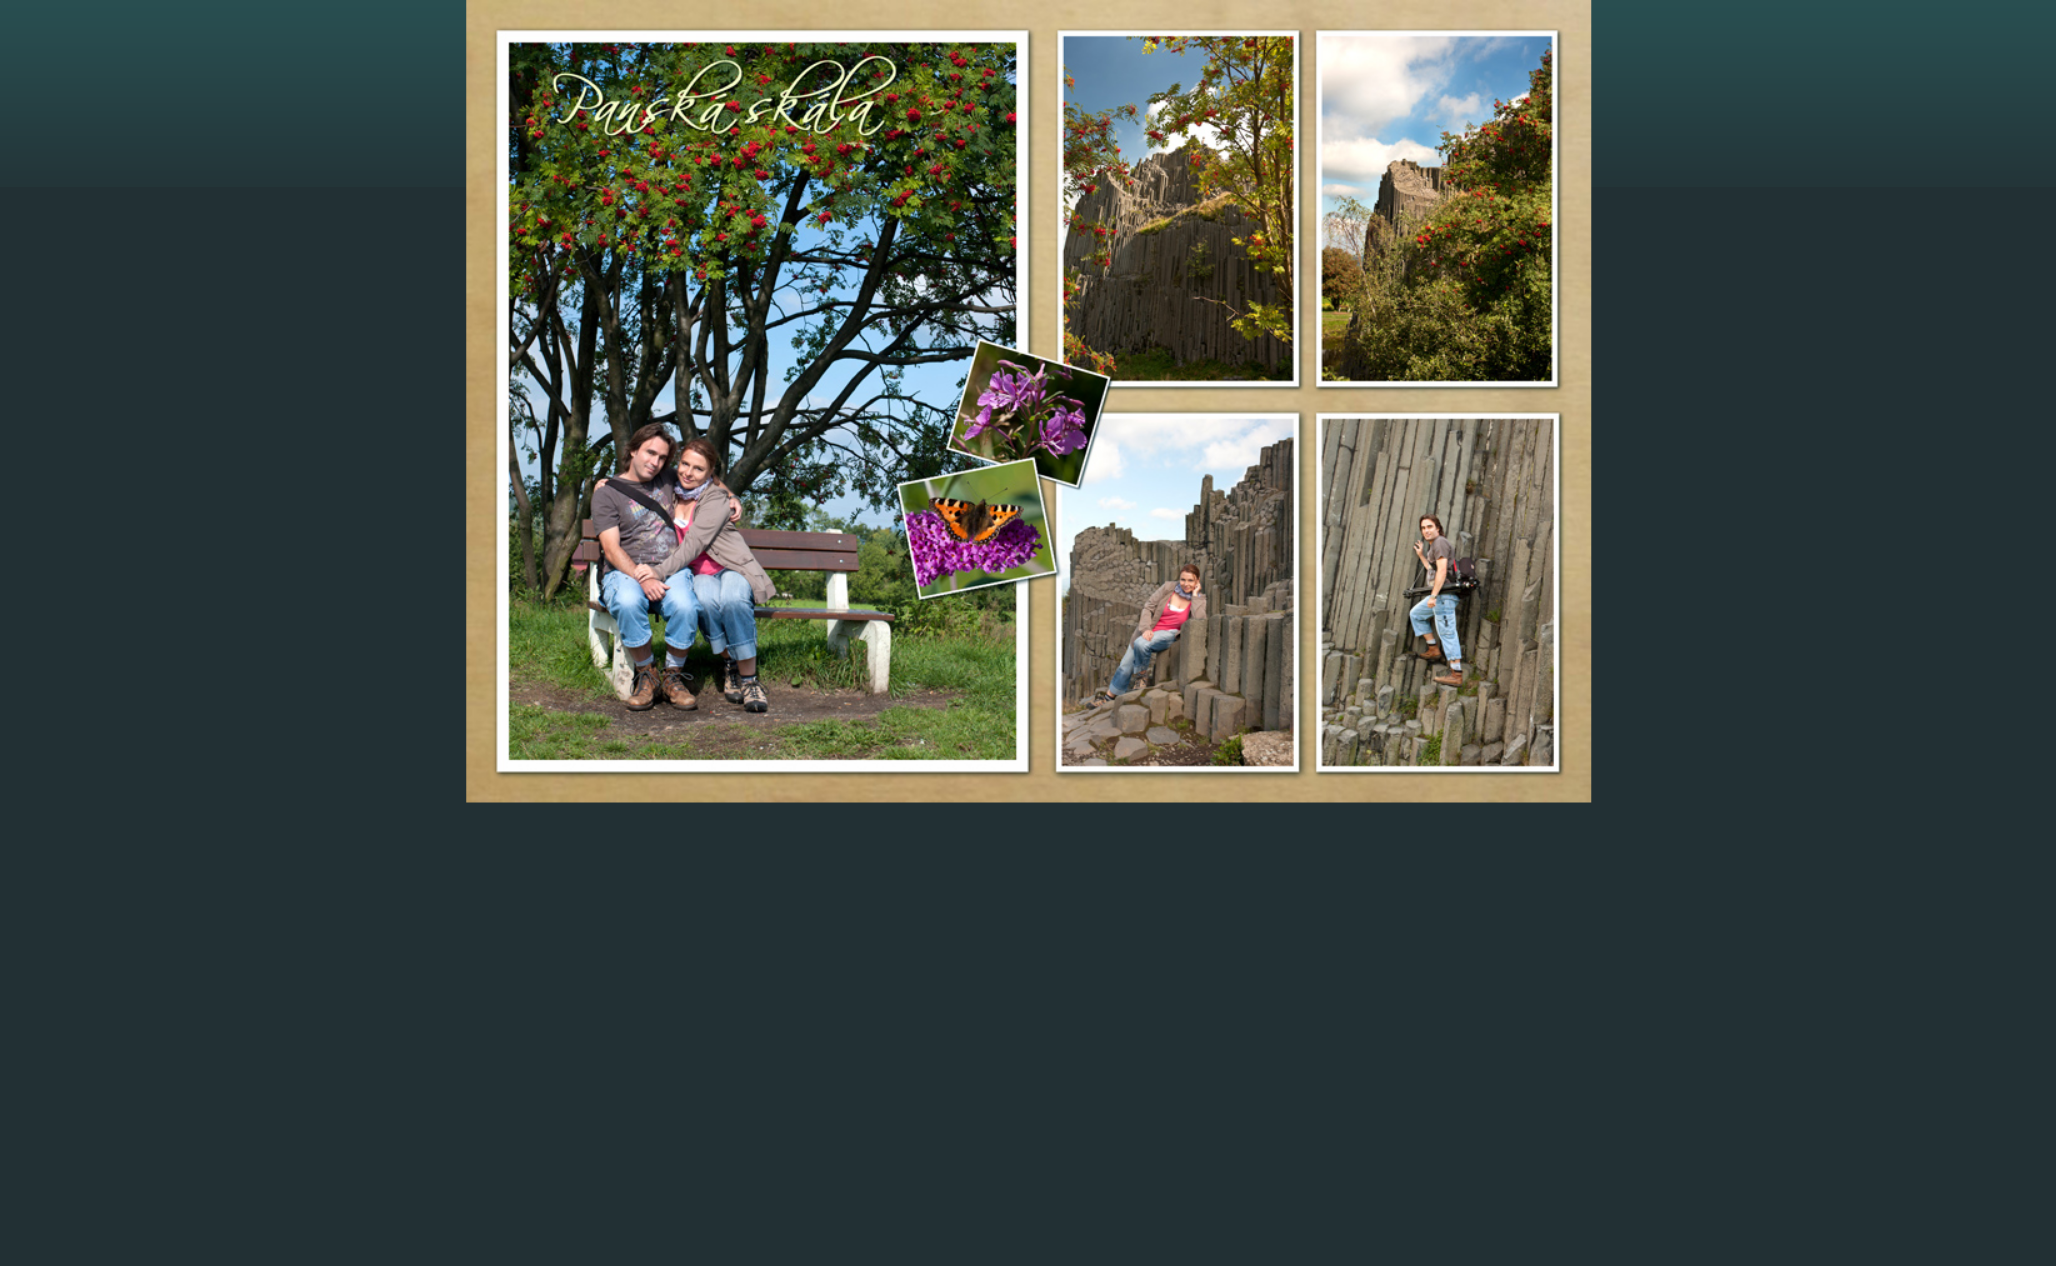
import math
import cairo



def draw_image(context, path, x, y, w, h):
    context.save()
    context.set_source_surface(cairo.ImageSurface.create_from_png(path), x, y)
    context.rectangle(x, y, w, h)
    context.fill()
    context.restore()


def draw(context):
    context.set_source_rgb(34 / 255, 48 / 255, 52 / 255)
    context.paint()
    draw_image(context, "images/1.png", 0, 0, 2056, 187)
    draw_image(context, "images/2.png", 466, 0, 1126, 803)


surface = cairo.ImageSurface(cairo.Format.RGB24, 2056, 1266)
context = cairo.Context(surface)
options = cairo.FontOptions()
options.set_hint_metrics(cairo.HintMetrics.OFF)
options.set_hint_style(cairo.HintStyle.NONE)
context.set_font_options(options)
context.set_miter_limit(4)
draw(context)
surface.write_to_png("out.png")
